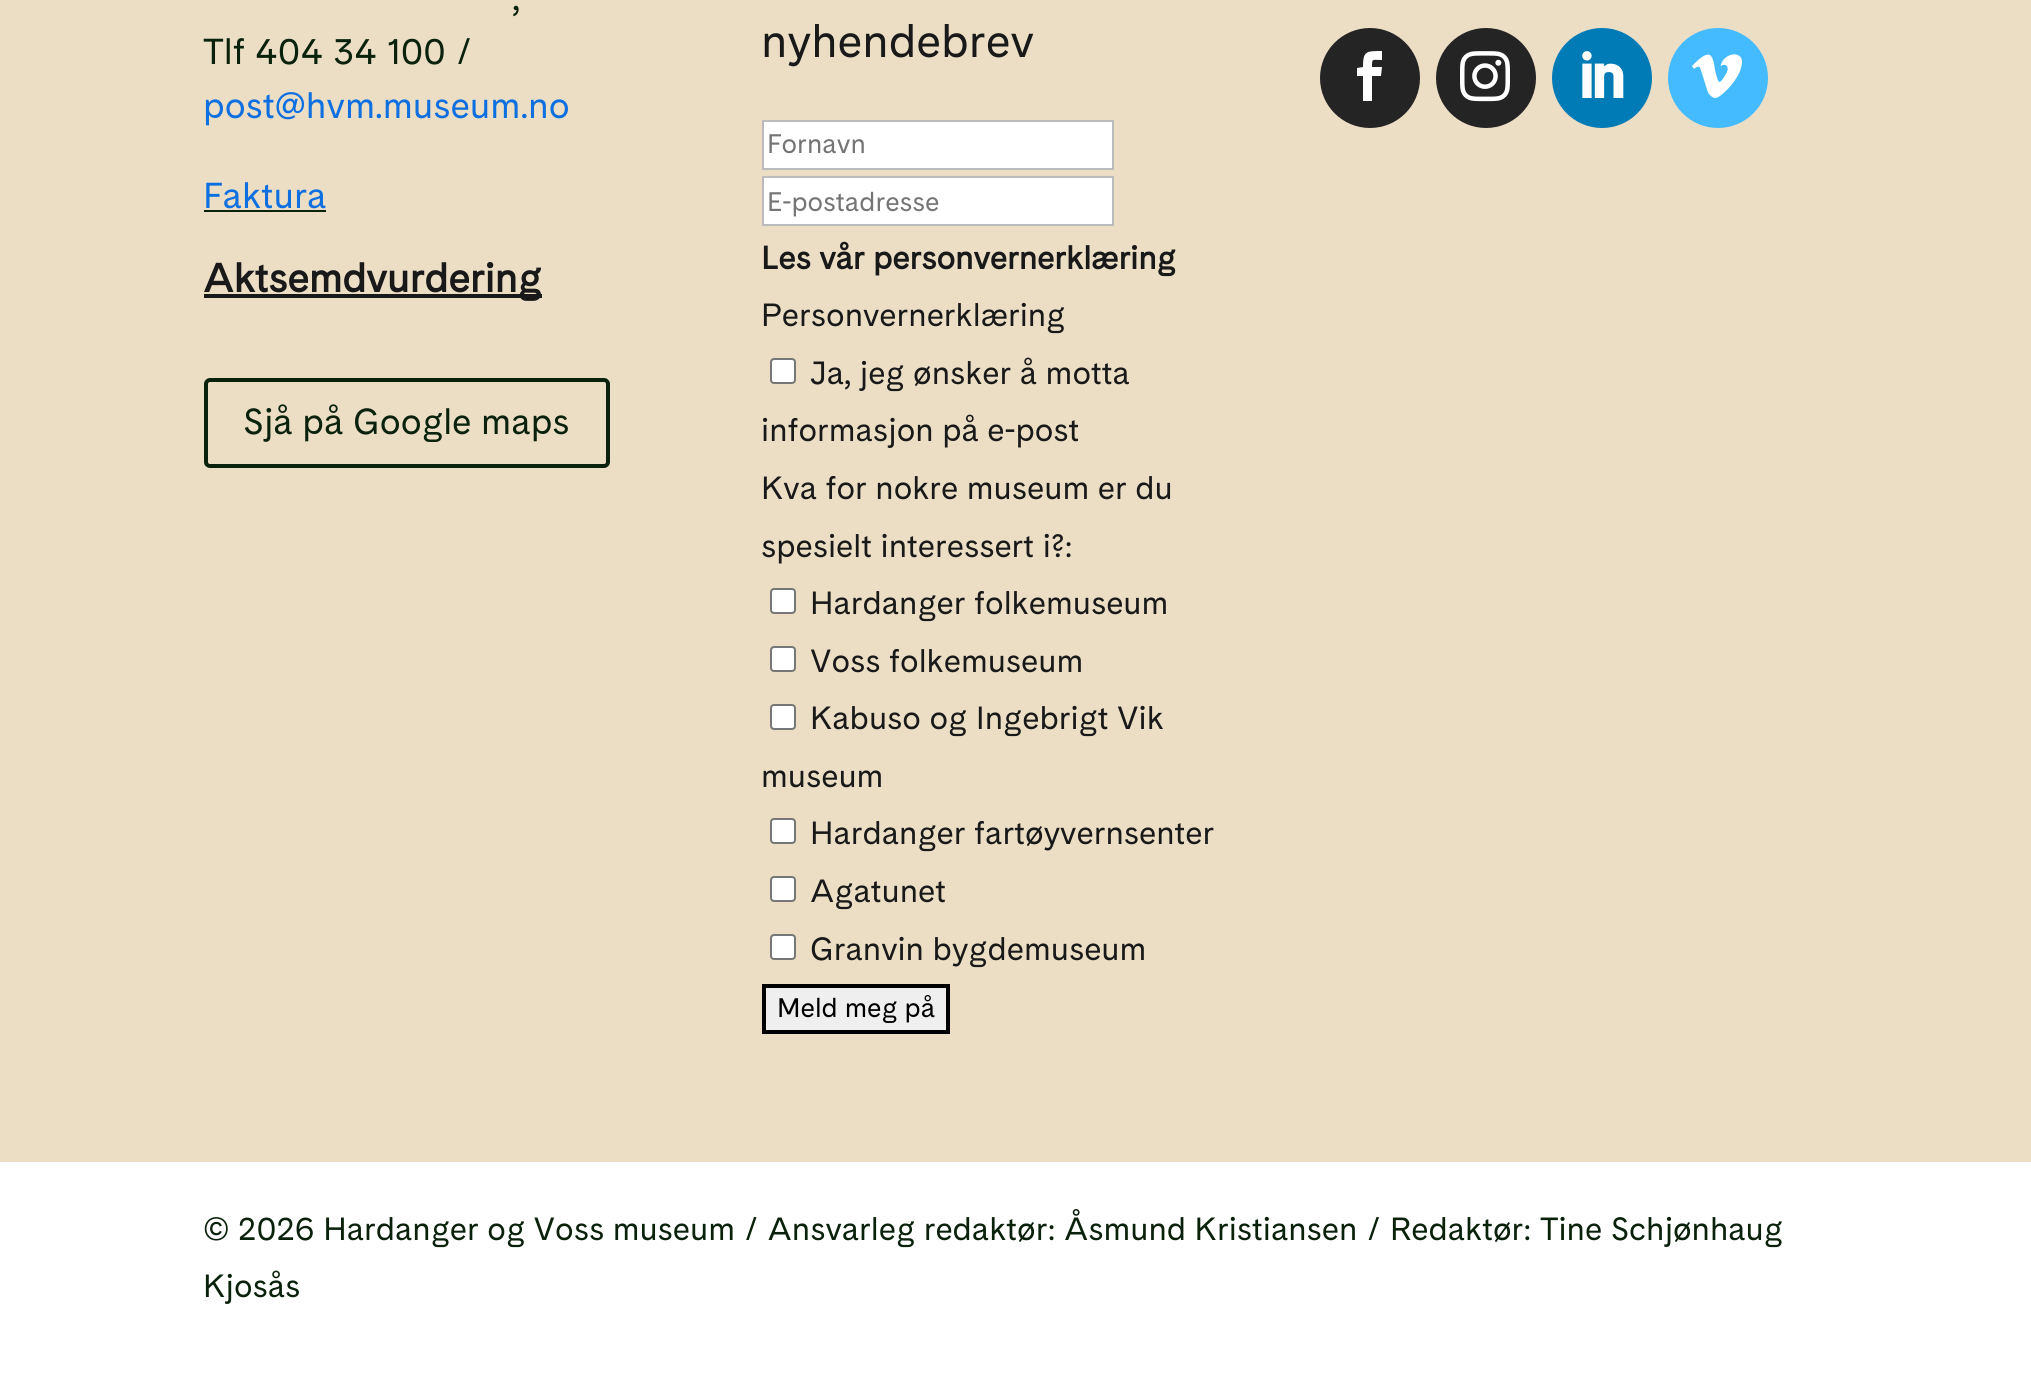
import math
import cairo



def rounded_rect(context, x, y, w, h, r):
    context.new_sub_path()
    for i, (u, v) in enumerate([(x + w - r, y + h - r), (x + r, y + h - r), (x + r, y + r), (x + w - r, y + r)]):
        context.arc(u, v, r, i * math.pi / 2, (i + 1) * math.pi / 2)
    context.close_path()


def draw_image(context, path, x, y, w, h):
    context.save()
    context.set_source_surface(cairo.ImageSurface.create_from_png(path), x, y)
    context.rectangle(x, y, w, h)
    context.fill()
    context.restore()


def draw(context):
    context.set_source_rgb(235 / 255, 222 / 255, 197 / 255)
    context.paint()
    context.set_source_rgb(10 / 255, 34 / 255, 11 / 255)
    context.rectangle(204, 210, 122, 2)
    context.fill()
    context.set_source_rgb(25 / 255, 25 / 255, 25 / 255)
    context.rectangle(204, 294, 338, 4)
    context.fill()
    rounded_rect(context, 206, 380, 402, 86, 4)
    context.set_source_rgb(10 / 255, 34 / 255, 11 / 255)
    context.set_line_width(4)
    context.stroke()
    context.set_source_rgb(1, 1, 1)
    context.rectangle(763, 121, 350, 48)
    context.fill_preserve()
    context.set_source_rgb(187 / 255, 187 / 255, 187 / 255)
    context.set_line_width(2)
    context.stroke()
    context.set_source_rgb(1, 1, 1)
    context.rectangle(763, 177, 350, 48)
    context.fill_preserve()
    context.set_source_rgb(187 / 255, 187 / 255, 187 / 255)
    context.stroke()
    context.set_source_rgb(1, 1, 1)
    rounded_rect(context, 771, 359, 24, 24, 3)
    context.fill_preserve()
    context.set_source_rgb(118 / 255, 118 / 255, 118 / 255)
    context.stroke()
    context.set_source_rgb(1, 1, 1)
    rounded_rect(context, 771, 589, 24, 24, 3)
    context.fill_preserve()
    context.set_source_rgb(118 / 255, 118 / 255, 118 / 255)
    context.stroke()
    context.set_source_rgb(1, 1, 1)
    rounded_rect(context, 771, 647, 24, 24, 3)
    context.fill_preserve()
    context.set_source_rgb(118 / 255, 118 / 255, 118 / 255)
    context.stroke()
    context.set_source_rgb(1, 1, 1)
    rounded_rect(context, 771, 705, 24, 24, 3)
    context.fill_preserve()
    context.set_source_rgb(118 / 255, 118 / 255, 118 / 255)
    context.stroke()
    context.set_source_rgb(1, 1, 1)
    rounded_rect(context, 771, 819, 24, 24, 3)
    context.fill_preserve()
    context.set_source_rgb(118 / 255, 118 / 255, 118 / 255)
    context.stroke()
    context.set_source_rgb(1, 1, 1)
    rounded_rect(context, 771, 877, 24, 24, 3)
    context.fill_preserve()
    context.set_source_rgb(118 / 255, 118 / 255, 118 / 255)
    context.stroke()
    context.set_source_rgb(1, 1, 1)
    rounded_rect(context, 771, 935, 24, 24, 3)
    context.fill_preserve()
    context.set_source_rgb(118 / 255, 118 / 255, 118 / 255)
    context.stroke()
    context.set_source_rgb(239 / 255, 239 / 255, 239 / 255)
    context.rectangle(764, 986, 184, 46)
    context.fill_preserve()
    context.set_source_rgb(0, 0, 0)
    context.set_line_width(4)
    context.stroke()
    context.set_source_rgb(36 / 255, 36 / 255, 36 / 255)
    context.arc(1370, 78, 50, 0, 2 * math.pi)
    context.fill()
    context.set_source_rgb(1, 1, 1)
    context.new_path()
    context.move_to(1363, 101)
    context.line_to(1372, 101)
    context.line_to(1372, 76)
    context.line_to(1381, 76)
    context.line_to(1382, 67)
    context.line_to(1372, 67)
    context.curve_to(1372, 58, 1372, 60, 1382, 60)
    context.line_to(1382, 51)
    context.curve_to(1366, 51, 1363, 51, 1363, 67)
    context.line_to(1357, 68)
    context.line_to(1357, 76)
    context.line_to(1363, 76)
    context.close_path()
    context.fill()
    context.set_source_rgb(36 / 255, 36 / 255, 36 / 255)
    context.arc(1486, 78, 50, 0, 2 * math.pi)
    context.fill()
    draw_image(context, "images/1.png", 1460, 51, 50, 51)
    context.set_source_rgb(0, 123 / 255, 182 / 255)
    context.arc(1602, 78, 50, 0, 2 * math.pi)
    context.fill()
    draw_image(context, "images/2.png", 1582, 51, 42, 47)
    context.set_source_rgb(69 / 255, 187 / 255, 1)
    context.arc(1718, 78, 50, 0, 2 * math.pi)
    context.fill()
    draw_image(context, "images/3.png", 1692, 54, 50, 44)
    context.set_source_rgb(1, 1, 1)
    context.rectangle(0, 1162, 2031, 223)
    context.fill()
    context.select_font_face("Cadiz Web")
    context.set_font_size(36)
    context.set_source_rgb(10 / 255, 34 / 255, 11 / 255)
    context.move_to(512, 10)
    context.show_text(",")
    context.move_to(203, 64)
    context.show_text("Tlf 404 34 100 /")
    context.set_source_rgb(13 / 255, 111 / 255, 224 / 255)
    context.move_to(203, 118)
    context.show_text("post@hvm.museum.no")
    context.move_to(203, 208)
    context.show_text("Faktura")
    context.select_font_face("Cadiz Web", cairo.FontSlant.NORMAL, cairo.FontWeight.BOLD)
    context.set_font_size(40)
    context.set_source_rgb(25 / 255, 25 / 255, 25 / 255)
    context.move_to(203, 292)
    context.show_text("Aktsemdvurdering")
    context.select_font_face("Cadiz Web")
    context.set_font_size(36)
    context.set_source_rgb(10 / 255, 34 / 255, 11 / 255)
    context.move_to(243, 434)
    context.show_text("Sjå på Google maps")
    context.set_font_size(46)
    context.set_source_rgb(25 / 255, 25 / 255, 25 / 255)
    context.move_to(761, 57)
    context.show_text("nyhendebrev")
    context.set_font_size(26.75)
    context.set_source_rgb(117 / 255, 117 / 255, 117 / 255)
    context.move_to(767, 153)
    context.show_text("Fornavn")
    context.move_to(767, 211)
    context.show_text("E-postadresse")
    context.select_font_face("Cadiz Web", cairo.FontSlant.NORMAL, cairo.FontWeight.BOLD)
    context.set_font_size(32)
    context.set_source_rgb(25 / 255, 25 / 255, 25 / 255)
    context.move_to(761, 269)
    context.show_text("Les vår personvernerklæring")
    context.select_font_face("Cadiz Web")
    context.move_to(761, 326)
    context.show_text("Personvernerklæring")
    context.move_to(810, 384)
    context.show_text("Ja, jeg ønsker å motta")
    context.move_to(761, 441)
    context.show_text("informasjon på e-post")
    context.move_to(761, 499)
    context.show_text("Kva for nokre museum er du")
    context.move_to(761, 557)
    context.show_text("spesielt interessert i?:")
    context.move_to(810, 614)
    context.show_text("Hardanger folkemuseum")
    context.move_to(810, 672)
    context.show_text("Voss folkemuseum")
    context.move_to(810, 729)
    context.show_text("Kabuso og Ingebrigt Vik")
    context.move_to(761, 787)
    context.show_text("museum")
    context.move_to(810, 844)
    context.show_text("Hardanger fartøyvernsenter")
    context.move_to(810, 902)
    context.show_text("Agatunet")
    context.move_to(810, 960)
    context.show_text("Granvin bygdemuseum")
    context.set_font_size(26.75)
    context.set_source_rgb(0, 0, 0)
    context.move_to(777, 1017)
    context.show_text("Meld meg på")
    context.set_font_size(32)
    context.set_source_rgb(10 / 255, 34 / 255, 11 / 255)
    context.move_to(203, 1240)
    context.show_text("© 2026 Hardanger og Voss museum / Ansvarleg redaktør: Åsmund Kristiansen / Redaktør: Tine Schjønhaug")
    context.move_to(203, 1297)
    context.show_text("Kjosås")


surface = cairo.ImageSurface(cairo.Format.RGB24, 2031, 1385)
context = cairo.Context(surface)
options = cairo.FontOptions()
options.set_hint_metrics(cairo.HintMetrics.OFF)
options.set_hint_style(cairo.HintStyle.NONE)
context.set_font_options(options)
context.set_miter_limit(4)
draw(context)
surface.write_to_png("out.png")
